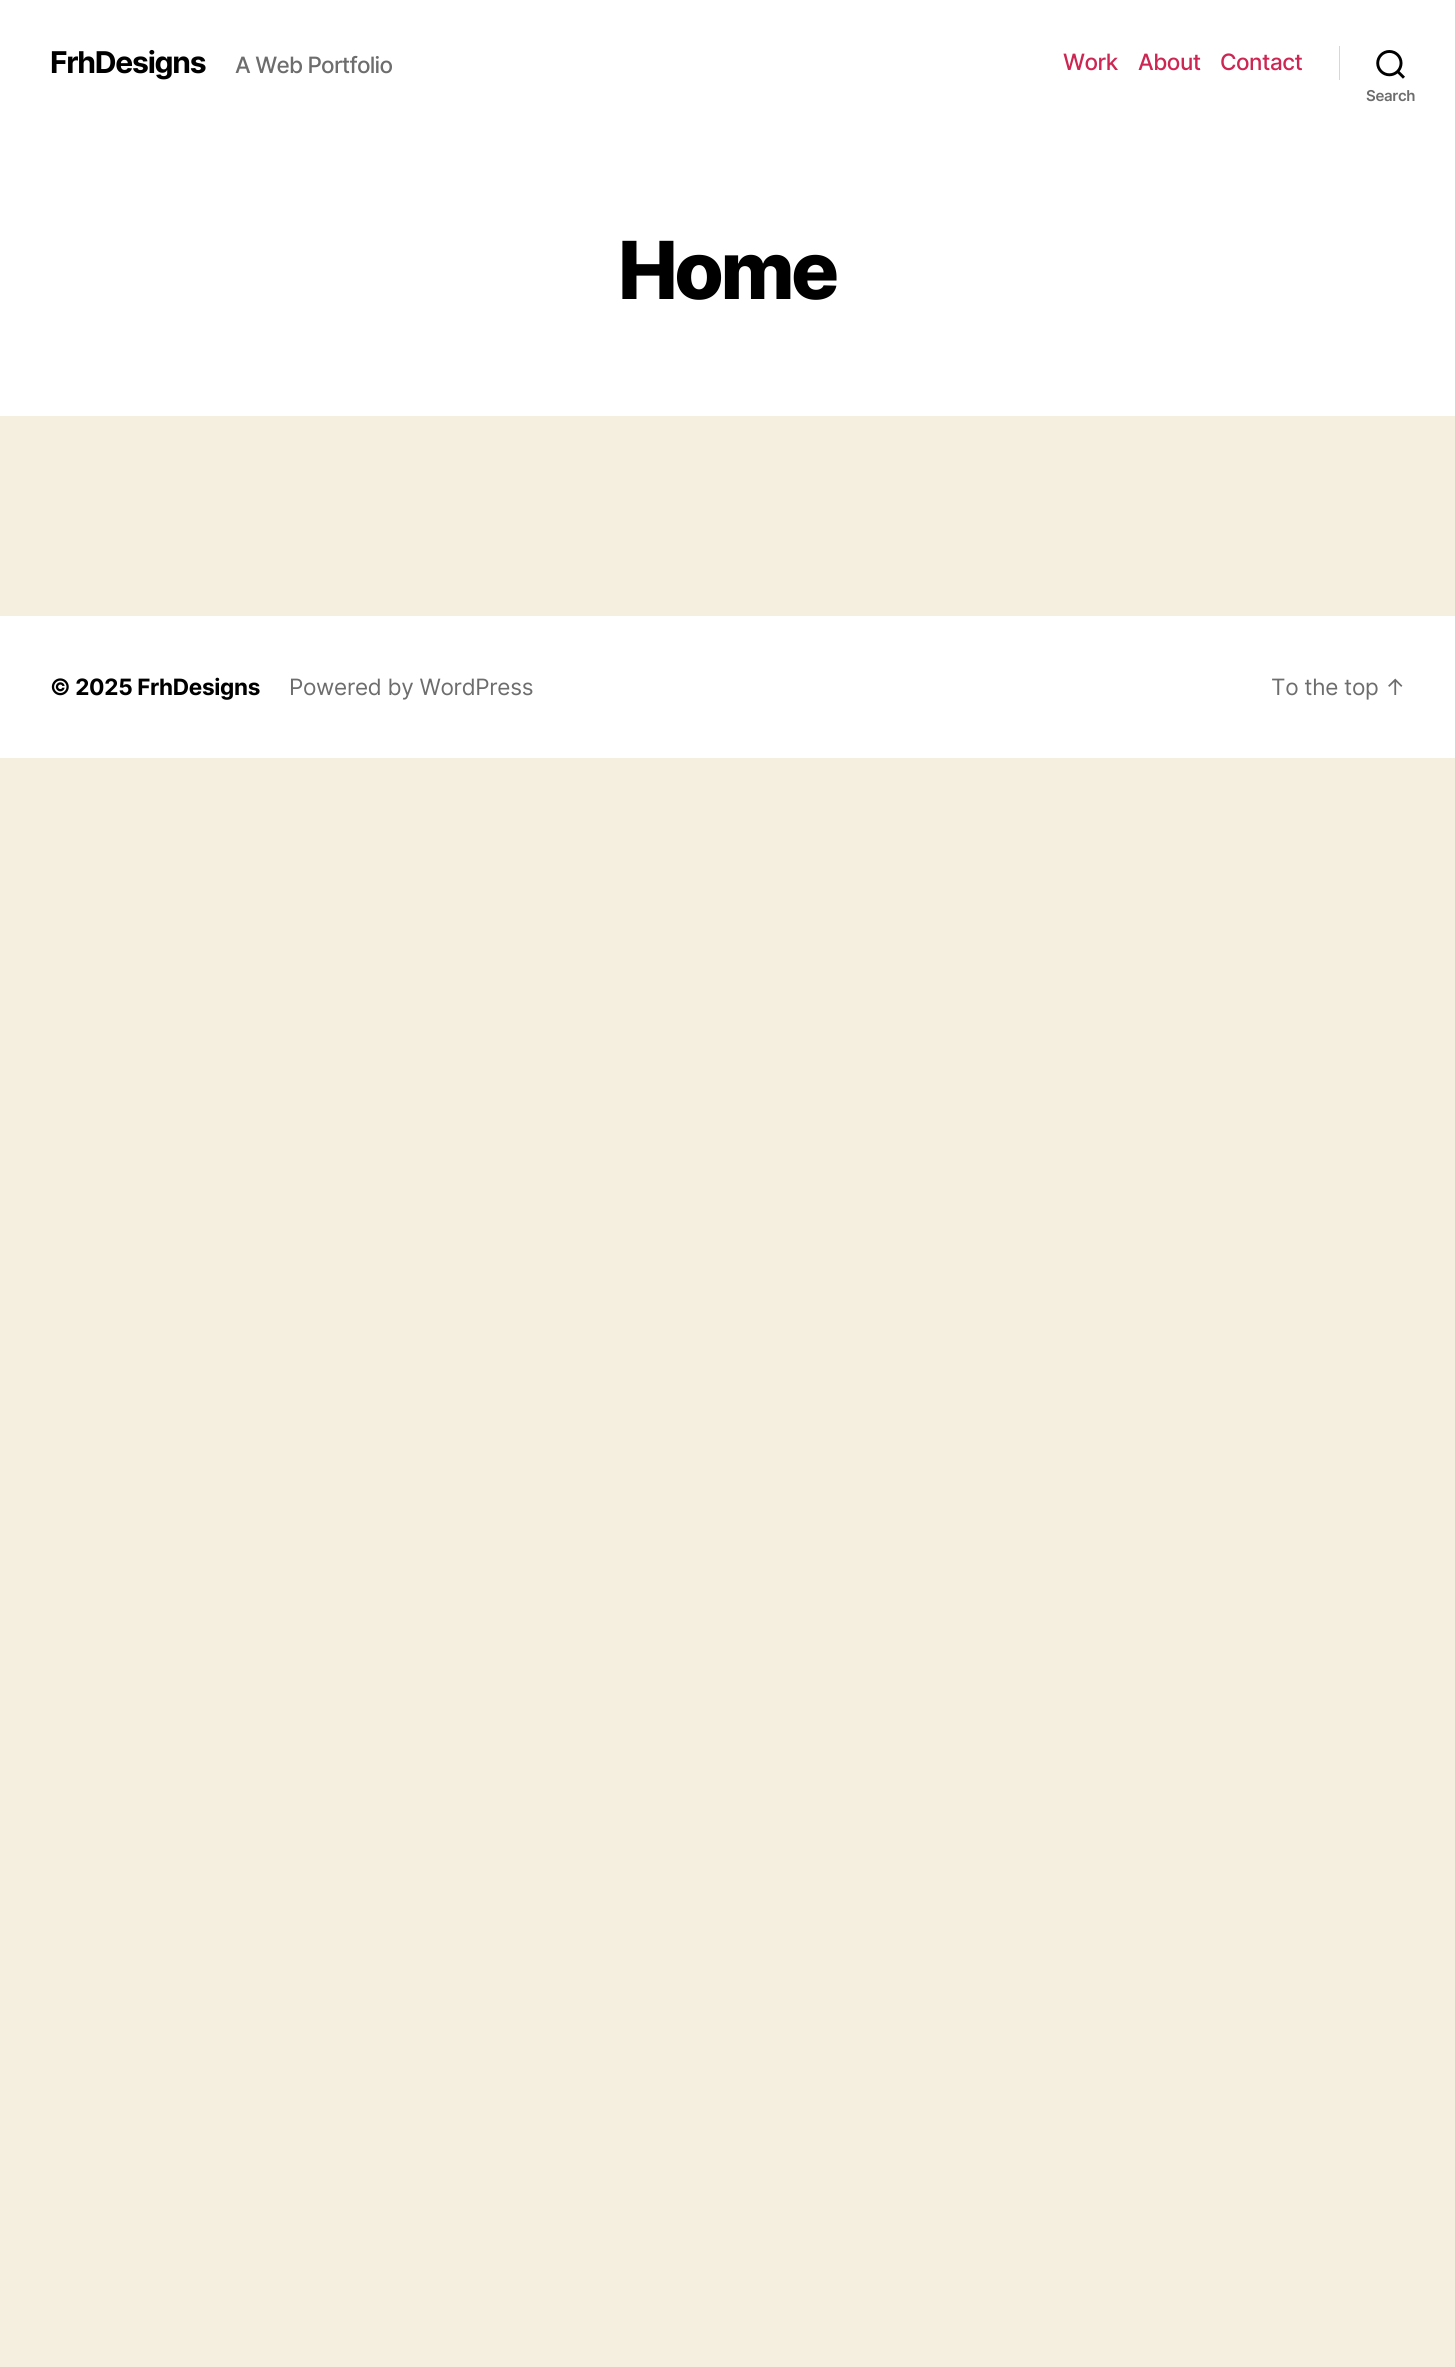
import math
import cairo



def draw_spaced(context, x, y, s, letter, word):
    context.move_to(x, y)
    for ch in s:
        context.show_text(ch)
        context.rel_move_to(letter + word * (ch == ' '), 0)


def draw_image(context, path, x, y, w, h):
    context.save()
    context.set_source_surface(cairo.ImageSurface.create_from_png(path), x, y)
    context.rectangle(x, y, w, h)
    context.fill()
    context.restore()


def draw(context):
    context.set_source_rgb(245 / 255, 239 / 255, 224 / 255)
    context.paint()
    context.set_source_rgb(1, 1, 1)
    context.rectangle(0, 0, 1455, 416)
    context.fill()
    context.set_source_rgb(220 / 255, 215 / 255, 202 / 255)
    context.rectangle(1339, 46, 1, 34)
    context.fill()
    draw_image(context, "images/1.png", 1376, 50, 29, 29)
    context.set_source_rgb(1, 1, 1)
    context.rectangle(0, 616, 1455, 142)
    context.fill()
    context.select_font_face("Inter", cairo.FontSlant.NORMAL, cairo.FontWeight.BOLD)
    context.set_font_size(30)
    context.set_source_rgb(0, 0, 0)
    draw_spaced(context, 50, 73, "FrhDesigns", -1.25, 0)
    context.select_font_face("Inter Medium")
    context.set_font_size(22.5)
    context.set_source_rgb(109 / 255, 109 / 255, 109 / 255)
    draw_spaced(context, 235, 73, "A Web Portfolio", -0.75, 0)
    context.set_source_rgb(205 / 255, 38 / 255, 83 / 255)
    draw_spaced(context, 1063, 70, "Work", -0.5, 0)
    draw_spaced(context, 1138, 70, "About", -0.5, 0)
    draw_spaced(context, 1220, 70, "Contact", -0.5, 0)
    context.select_font_face("Inter SemiBold")
    context.set_font_size(15)
    context.set_source_rgb(109 / 255, 109 / 255, 109 / 255)
    draw_spaced(context, 1366, 101, "Search", -0.3, 0)
    context.select_font_face("Inter ExtraBold")
    context.set_font_size(80)
    context.set_source_rgb(0, 0, 0)
    draw_spaced(context, 618, 299, "Home", -3.5, 0)
    context.select_font_face("Inter", cairo.FontSlant.NORMAL, cairo.FontWeight.BOLD)
    context.set_font_size(22.5)
    draw_spaced(context, 50, 695, "© 2025 FrhDesigns", -0.3, 0)
    context.select_font_face("Inter")
    context.set_source_rgb(109 / 255, 109 / 255, 109 / 255)
    draw_spaced(context, 289, 695, "Powered by WordPress", -0.3, 0)
    draw_spaced(context, 1271, 695, "To the top ↑", -0.3, 0)


surface = cairo.ImageSurface(cairo.Format.RGB24, 1455, 2367)
context = cairo.Context(surface)
options = cairo.FontOptions()
options.set_hint_metrics(cairo.HintMetrics.OFF)
options.set_hint_style(cairo.HintStyle.NONE)
context.set_font_options(options)
context.set_miter_limit(4)
draw(context)
surface.write_to_png("out.png")
